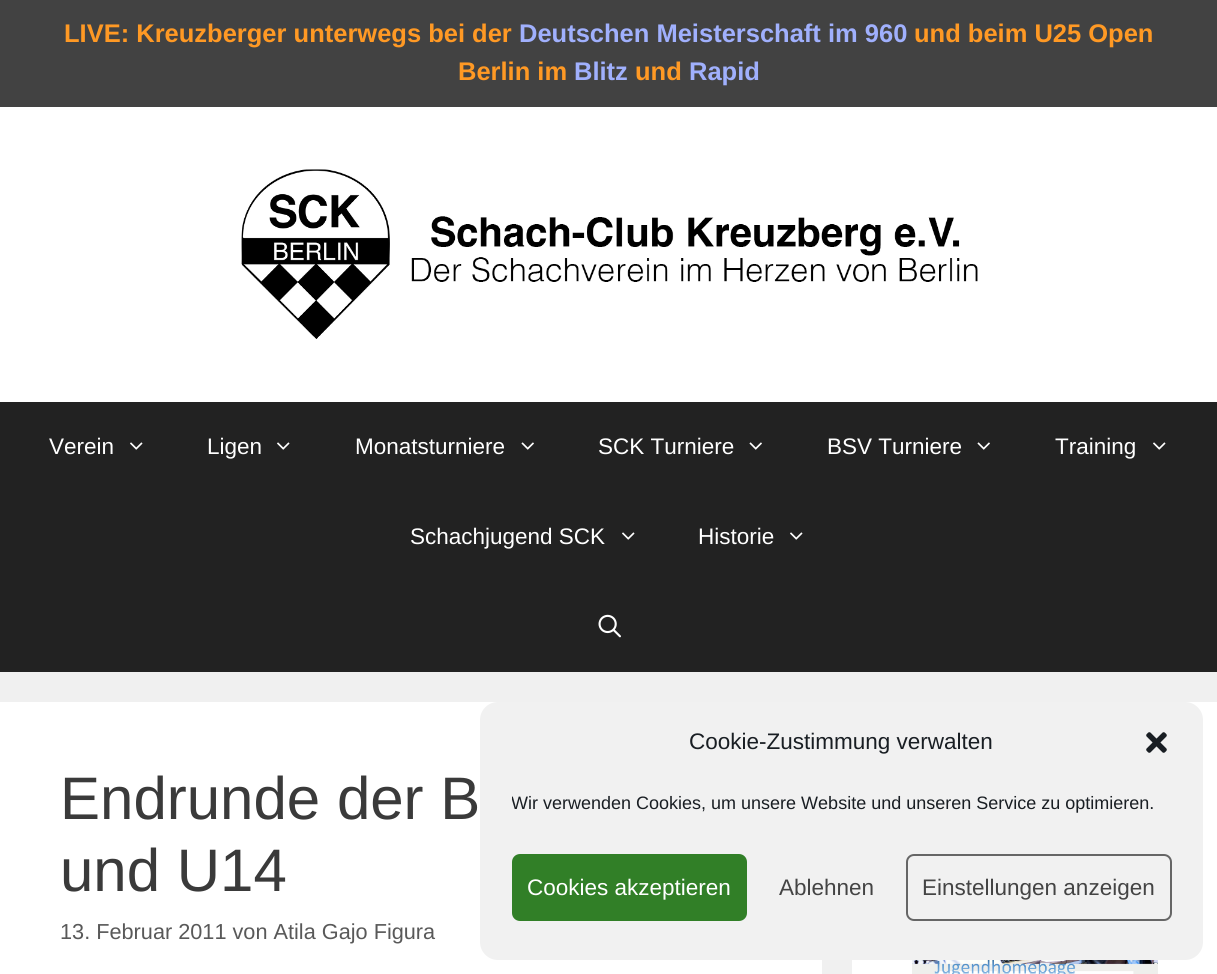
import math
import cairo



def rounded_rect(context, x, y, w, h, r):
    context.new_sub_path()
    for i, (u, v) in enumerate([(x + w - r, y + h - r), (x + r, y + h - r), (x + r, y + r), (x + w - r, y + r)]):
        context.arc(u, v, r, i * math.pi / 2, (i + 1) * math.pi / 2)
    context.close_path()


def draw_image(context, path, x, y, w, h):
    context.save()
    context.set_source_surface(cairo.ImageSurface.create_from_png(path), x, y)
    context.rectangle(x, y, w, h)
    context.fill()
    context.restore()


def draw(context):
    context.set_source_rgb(240 / 255, 240 / 255, 240 / 255)
    context.paint()
    context.set_source_rgb(66 / 255, 66 / 255, 66 / 255)
    context.rectangle(0, 0, 1217, 107)
    context.fill()
    context.set_source_rgb(1, 1, 1)
    context.rectangle(0, 107, 1217, 295)
    context.fill()
    draw_image(context, "images/1.png", 241, 169, 737, 170)
    context.set_source_rgb(34 / 255, 34 / 255, 34 / 255)
    context.rectangle(0, 402, 1217, 270)
    context.fill()
    draw_image(context, "images/2.png", 130, 442, 13, 8)
    draw_image(context, "images/2.png", 277, 442, 13, 8)
    draw_image(context, "images/3.png", 521, 442, 13, 8)
    draw_image(context, "images/3.png", 749, 442, 13, 8)
    draw_image(context, "images/3.png", 977, 442, 13, 8)
    draw_image(context, "images/2.png", 1153, 442, 13, 8)
    draw_image(context, "images/2.png", 622, 532, 13, 8)
    draw_image(context, "images/2.png", 790, 532, 13, 8)
    draw_image(context, "images/4.png", 598, 614, 23, 24)
    context.set_source_rgb(1, 1, 1)
    context.rectangle(0, 702, 822, 272)
    context.fill()
    context.rectangle(852, 702, 365, 272)
    context.fill()
    draw_image(context, "images/5.png", 912, 960, 246, 14)
    context.set_source_rgb(241 / 255, 241 / 255, 241 / 255)
    rounded_rect(context, 481, 703, 721, 256, 17)
    context.fill_preserve()
    context.stroke()
    draw_image(context, "images/6.png", 1146, 732, 21, 21)
    context.set_source_rgb(49 / 255, 127 / 255, 39 / 255)
    rounded_rect(context, 513, 855, 233, 65, 7)
    context.fill_preserve()
    context.stroke()
    rounded_rect(context, 907, 855, 264, 65, 7)
    context.set_source_rgb(102 / 255, 102 / 255, 102 / 255)
    context.stroke()
    context.select_font_face("Liberation Sans", cairo.FontSlant.NORMAL, cairo.FontWeight.BOLD)
    context.set_font_size(25.5)
    context.set_source_rgb(1, 153 / 255, 36 / 255)
    context.move_to(64, 42)
    context.show_text("LIVE: Kreuzberger unterwegs bei der")
    context.set_source_rgb(160 / 255, 176 / 255, 253 / 255)
    context.move_to(519, 42)
    context.show_text("Deutschen Meisterschaft im 960")
    context.set_source_rgb(1, 153 / 255, 36 / 255)
    context.move_to(914, 42)
    context.show_text("und beim U25 Open")
    context.move_to(458, 80)
    context.show_text("Berlin im")
    context.set_source_rgb(160 / 255, 176 / 255, 253 / 255)
    context.move_to(574, 80)
    context.show_text("Blitz")
    context.set_source_rgb(1, 153 / 255, 36 / 255)
    context.move_to(635, 80)
    context.show_text("und")
    context.set_source_rgb(160 / 255, 176 / 255, 253 / 255)
    context.move_to(689, 80)
    context.show_text("Rapid")
    context.select_font_face("Liberation Sans")
    context.set_font_size(22.5)
    context.set_source_rgb(1, 1, 1)
    context.move_to(49, 454)
    context.show_text("Verein")
    context.move_to(207, 454)
    context.show_text("Ligen")
    context.move_to(355, 454)
    context.show_text("Monatsturniere")
    context.move_to(598, 454)
    context.show_text("SCK Turniere")
    context.move_to(827, 454)
    context.show_text("BSV Turniere")
    context.move_to(1055, 454)
    context.show_text("Training")
    context.move_to(410, 544)
    context.show_text("Schachjugend SCK")
    context.move_to(698, 544)
    context.show_text("Historie")
    context.set_font_size(60)
    context.set_source_rgb(58 / 255, 58 / 255, 58 / 255)
    context.move_to(60, 819)
    context.show_text("Endrunde der B")
    context.move_to(60, 891)
    context.show_text("und U14")
    context.set_font_size(21.7)
    context.set_source_rgb(89 / 255, 89 / 255, 89 / 255)
    context.move_to(60, 939)
    context.show_text("13. Februar 2011 von Atila Gajo Figura")
    context.set_font_size(22.5)
    context.set_source_rgb(25 / 255, 30 / 255, 35 / 255)
    context.move_to(689, 749)
    context.show_text("Cookie-Zustimmung verwalten")
    context.save()
    context.rectangle(512, 789, 660, 35)
    context.clip()
    context.set_font_size(18)
    context.move_to(511, 809)
    context.show_text("Wir verwenden Cookies, um unsere Website und unseren Service zu optimieren.")
    context.restore()
    context.set_source_rgb(1, 1, 1)
    context.move_to(527, 895)
    context.show_text("Cookies akzeptieren")
    context.set_source_rgb(68 / 255, 68 / 255, 68 / 255)
    context.move_to(779, 895)
    context.show_text("Ablehnen")
    context.move_to(922, 895)
    context.show_text("Einstellungen anzeigen")


surface = cairo.ImageSurface(cairo.Format.RGB24, 1217, 974)
context = cairo.Context(surface)
options = cairo.FontOptions()
options.set_hint_metrics(cairo.HintMetrics.OFF)
options.set_hint_style(cairo.HintStyle.NONE)
context.set_font_options(options)
context.set_miter_limit(4)
draw(context)
surface.write_to_png("out.png")
